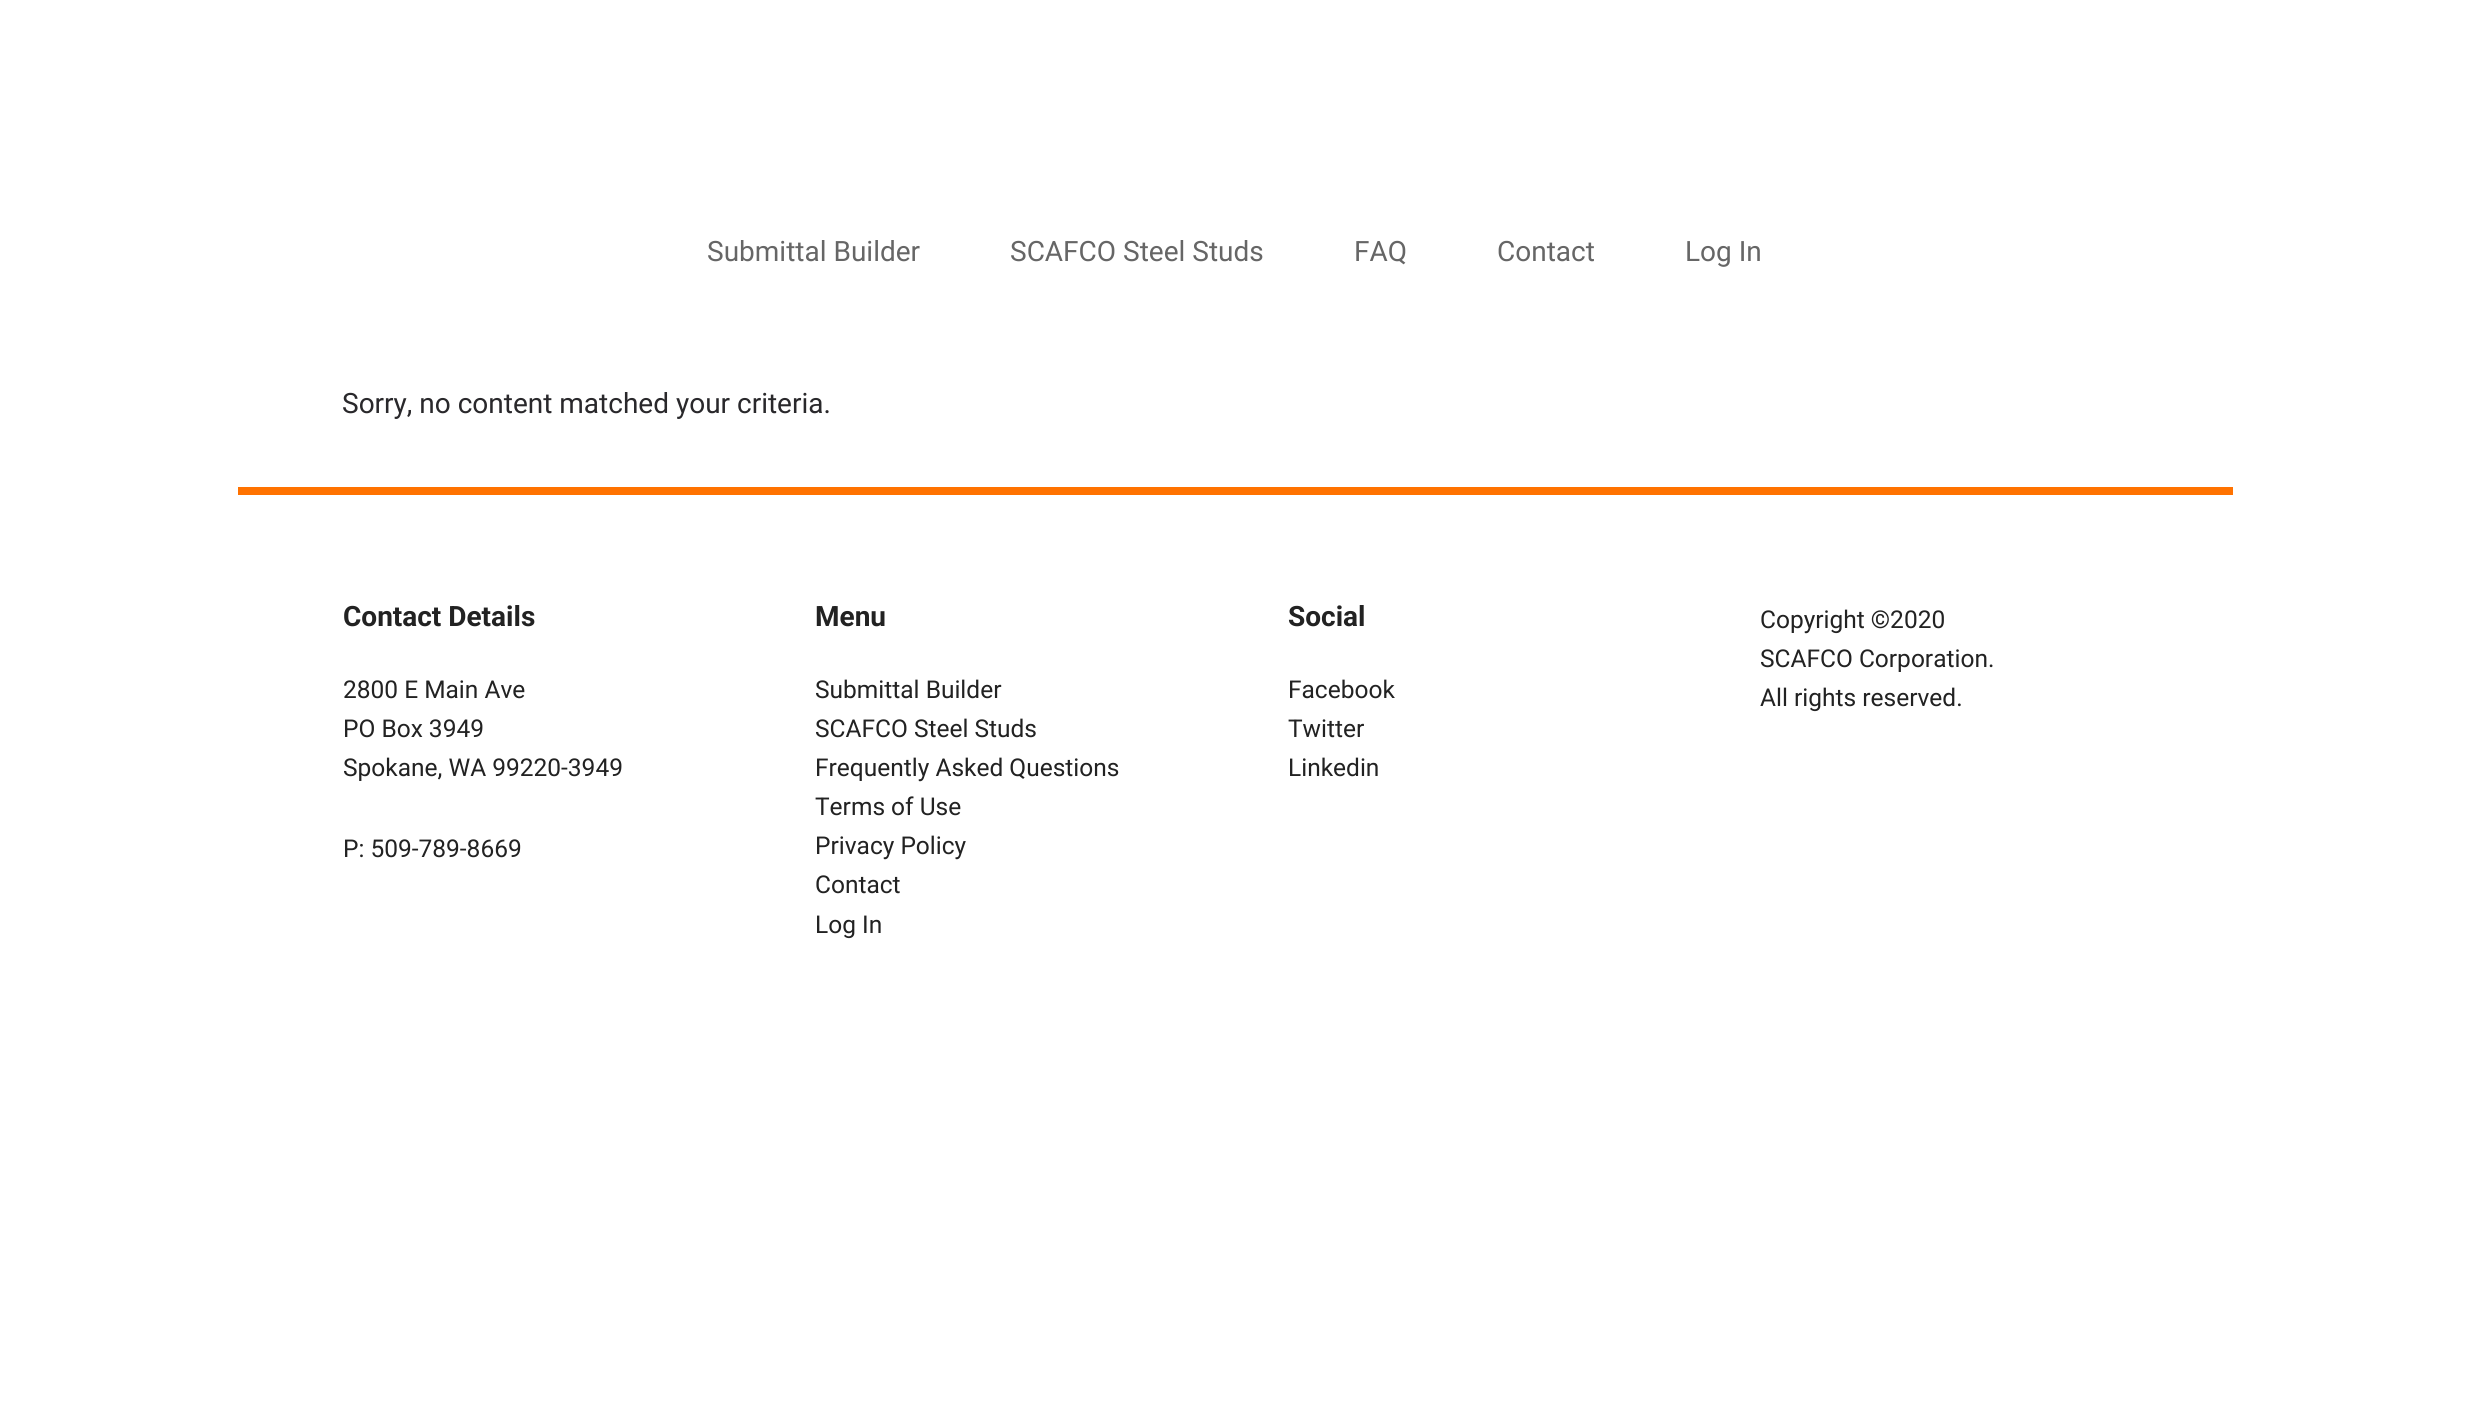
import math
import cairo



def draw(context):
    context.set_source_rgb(1, 1, 1)
    context.paint()
    context.set_source_rgb(1, 114 / 255, 0)
    context.rectangle(238, 487, 1995, 8)
    context.fill()
    context.select_font_face("Roboto")
    context.set_font_size(28)
    context.set_source_rgb(102 / 255, 102 / 255, 102 / 255)
    context.move_to(707, 261)
    context.show_text("Submittal Builder")
    context.move_to(1010, 261)
    context.show_text("SCAFCO Steel Studs")
    context.move_to(1354, 261)
    context.show_text("FAQ")
    context.move_to(1497, 261)
    context.show_text("Contact")
    context.move_to(1685, 261)
    context.show_text("Log In")
    context.set_source_rgb(41 / 255, 40 / 255, 43 / 255)
    context.move_to(342, 413)
    context.show_text("Sorry, no content matched your criteria.")
    context.select_font_face("Roboto", cairo.FontSlant.NORMAL, cairo.FontWeight.BOLD)
    context.set_source_rgb(34 / 255, 34 / 255, 34 / 255)
    context.move_to(343, 626)
    context.show_text("Contact Details")
    context.select_font_face("Roboto")
    context.set_font_size(24.5)
    context.move_to(343, 698)
    context.show_text("2800 E Main Ave")
    context.move_to(343, 737)
    context.show_text("PO Box 3949")
    context.move_to(343, 776)
    context.show_text("Spokane, WA 99220-3949")
    context.move_to(343, 857)
    context.show_text("P: 509-789-8669")
    context.select_font_face("Roboto", cairo.FontSlant.NORMAL, cairo.FontWeight.BOLD)
    context.set_font_size(28)
    context.move_to(815, 626)
    context.show_text("Menu")
    context.select_font_face("Roboto")
    context.set_font_size(24.5)
    context.move_to(815, 698)
    context.show_text("Submittal Builder")
    context.move_to(815, 737)
    context.show_text("SCAFCO Steel Studs")
    context.move_to(815, 776)
    context.show_text("Frequently Asked Questions")
    context.move_to(815, 815)
    context.show_text("Terms of Use")
    context.move_to(815, 854)
    context.show_text("Privacy Policy")
    context.move_to(815, 893)
    context.show_text("Contact")
    context.move_to(815, 933)
    context.show_text("Log In")
    context.select_font_face("Roboto", cairo.FontSlant.NORMAL, cairo.FontWeight.BOLD)
    context.set_font_size(28)
    context.move_to(1288, 626)
    context.show_text("Social")
    context.select_font_face("Roboto")
    context.set_font_size(24.5)
    context.move_to(1288, 698)
    context.show_text("Facebook")
    context.move_to(1288, 737)
    context.show_text("Twitter")
    context.move_to(1288, 776)
    context.show_text("Linkedin")
    context.move_to(1760, 628)
    context.show_text("Copyright ©2020")
    context.move_to(1760, 667)
    context.show_text("SCAFCO Corporation.")
    context.move_to(1760, 706)
    context.show_text("All rights reserved.")


surface = cairo.ImageSurface(cairo.Format.RGB24, 2468, 1406)
context = cairo.Context(surface)
options = cairo.FontOptions()
options.set_hint_metrics(cairo.HintMetrics.OFF)
options.set_hint_style(cairo.HintStyle.NONE)
context.set_font_options(options)
context.set_miter_limit(4)
draw(context)
surface.write_to_png("out.png")
